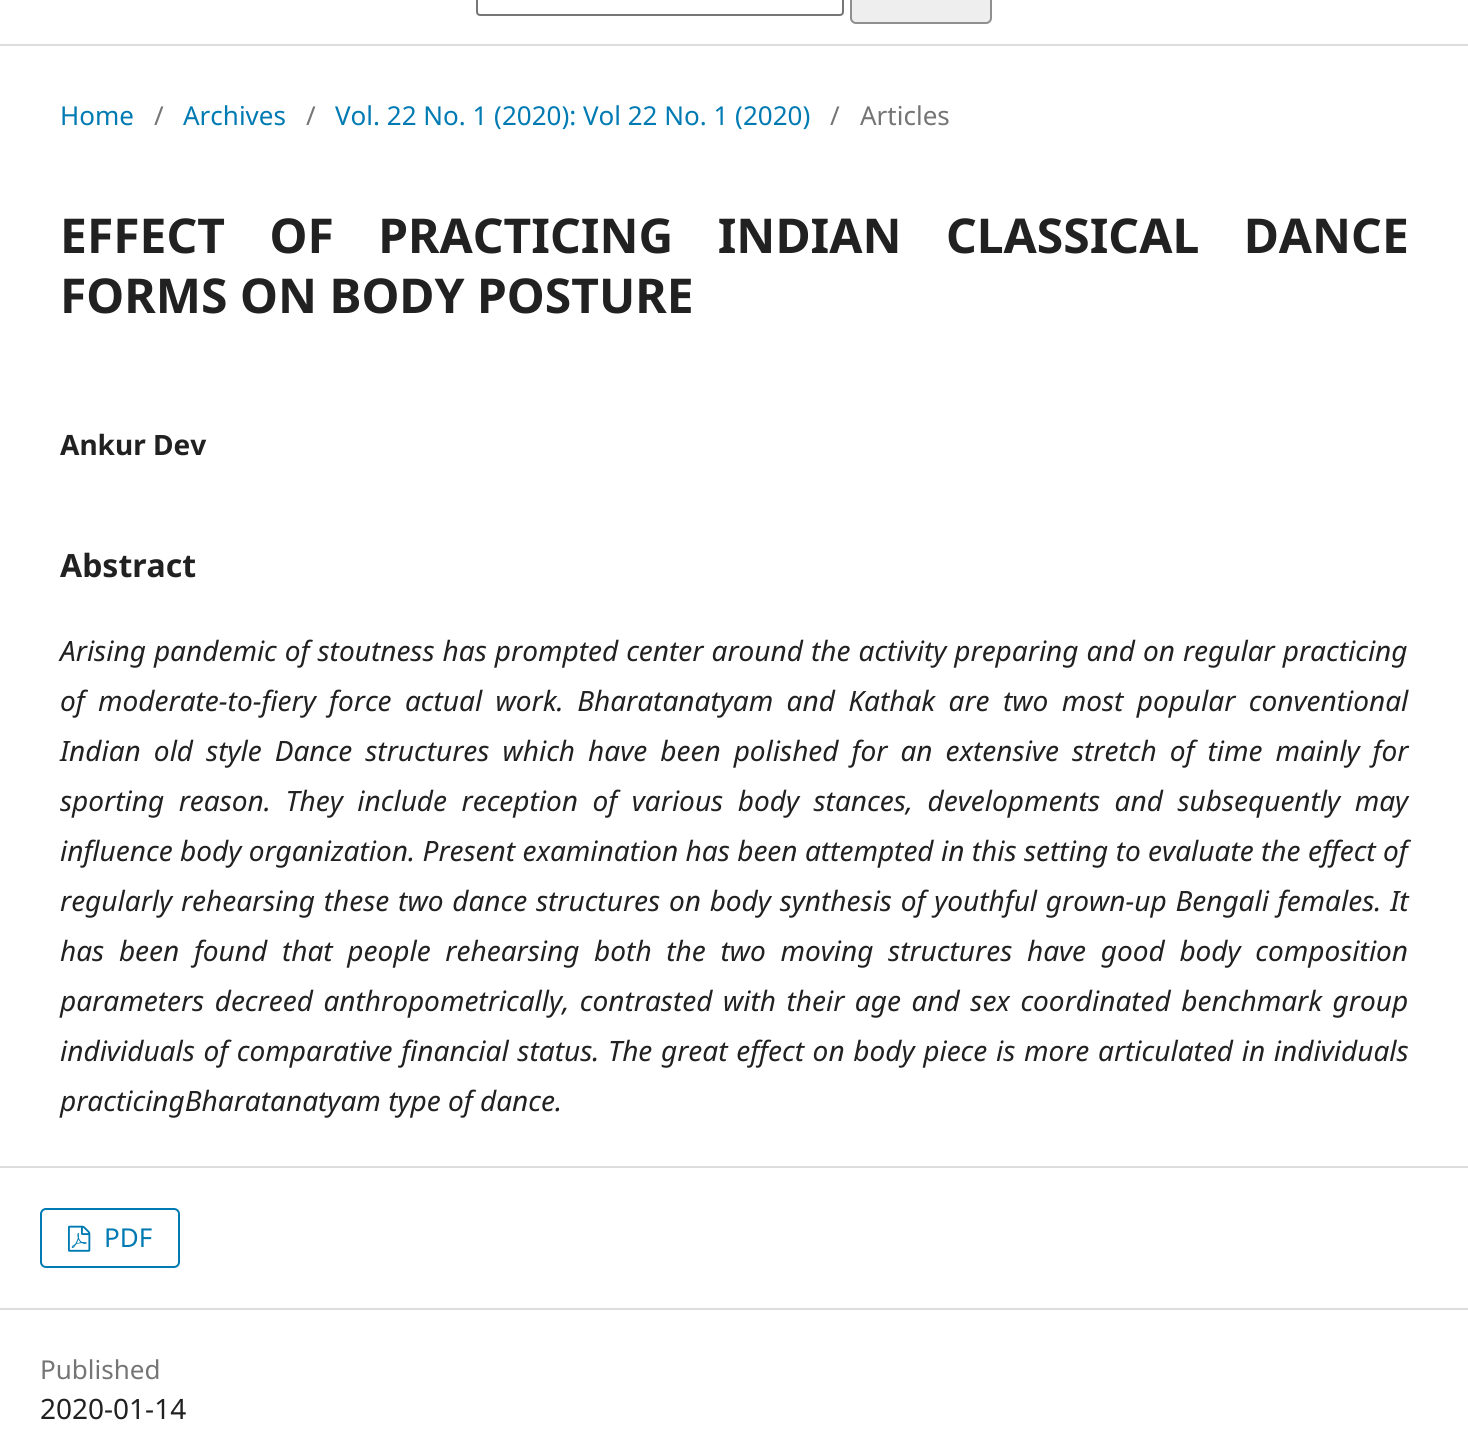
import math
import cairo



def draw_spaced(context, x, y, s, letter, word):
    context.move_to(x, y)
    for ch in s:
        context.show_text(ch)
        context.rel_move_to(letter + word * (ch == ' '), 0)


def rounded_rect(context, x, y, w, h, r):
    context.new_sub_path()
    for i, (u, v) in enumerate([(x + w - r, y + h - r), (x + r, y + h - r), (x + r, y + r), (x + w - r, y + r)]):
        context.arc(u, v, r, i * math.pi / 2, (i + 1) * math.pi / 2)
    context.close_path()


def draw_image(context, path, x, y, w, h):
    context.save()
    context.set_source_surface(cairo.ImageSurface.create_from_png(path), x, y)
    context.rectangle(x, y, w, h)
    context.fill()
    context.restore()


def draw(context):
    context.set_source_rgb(1, 1, 1)
    context.paint()
    context.set_source_rgb(221 / 255, 221 / 255, 221 / 255)
    context.rectangle(0, 44, 1468, 2)
    context.fill()
    rounded_rect(context, 477, -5, 366, 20, 3)
    context.set_source_rgb(118 / 255, 118 / 255, 118 / 255)
    context.stroke()
    context.set_source_rgb(238 / 255, 238 / 255, 238 / 255)
    rounded_rect(context, 850, -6, 142, 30, 6)
    context.fill()
    context.new_path()
    context.move_to(989.5, -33.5)
    context.curve_to(990.5, -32.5, 991, -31.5, 991, -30)
    context.line_to(991, 18)
    context.curve_to(991, 19.5, 990.5, 20.5, 989.5, 21.5)
    context.curve_to(988.5, 22.5, 987.5, 23, 986, 23)
    context.line_to(856, 23)
    context.curve_to(854.5, 23, 853.5, 22.5, 852.5, 21.5)
    context.curve_to(851.5, 20.5, 851, 19.5, 851, 18)
    context.line_to(851, -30)
    context.curve_to(851, -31.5, 851.5, -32.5, 852.5, -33.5)
    context.set_source_rgba(0, 0, 0, 0.4)
    context.stroke()
    context.set_source_rgb(221 / 255, 221 / 255, 221 / 255)
    context.rectangle(0, 1166, 1468, 2)
    context.fill()
    context.rectangle(0, 1308, 1468, 2)
    context.fill()
    rounded_rect(context, 41, 1209, 138, 58, 5)
    context.set_source_rgb(0, 122 / 255, 178 / 255)
    context.stroke()
    draw_image(context, "images/1.png", 68, 1225, 23, 27)
    context.select_font_face("Noto Sans")
    context.set_font_size(26)
    context.move_to(60, 125)
    context.show_text("Home")
    context.set_source_rgb(117 / 255, 117 / 255, 117 / 255)
    context.move_to(154, 125)
    context.show_text("/")
    context.set_source_rgb(0, 122 / 255, 178 / 255)
    context.move_to(183, 125)
    context.show_text("Archives")
    context.set_source_rgb(117 / 255, 117 / 255, 117 / 255)
    context.move_to(306, 125)
    context.show_text("/")
    context.set_source_rgb(0, 122 / 255, 178 / 255)
    context.move_to(335, 125)
    context.show_text("Vol. 22 No. 1 (2020): Vol 22 No. 1 (2020)")
    context.set_source_rgb(117 / 255, 117 / 255, 117 / 255)
    context.move_to(830, 125)
    context.show_text("/")
    context.move_to(860, 125)
    context.show_text("Articles")
    context.select_font_face("Noto Sans", cairo.FontSlant.NORMAL, cairo.FontWeight.BOLD)
    context.set_font_size(48)
    context.set_source_rgb(33 / 255, 33 / 255, 33 / 255)
    draw_spaced(context, 60, 253, "EFFECT OF PRACTICING INDIAN CLASSICAL DANCE", 0, 32)
    context.move_to(60, 313)
    context.show_text("FORMS ON BODY POSTURE")
    context.set_font_size(28)
    context.move_to(60, 455)
    context.show_text("Ankur Dev")
    context.set_font_size(32)
    context.move_to(60, 577)
    context.show_text("Abstract")
    context.select_font_face("Noto Sans", cairo.FontSlant.ITALIC)
    context.set_font_size(28)
    draw_spaced(context, 60, 661, "Arising pandemic of stoutness has prompted center around the activity preparing and on regular practicing", 0, 0.75)
    draw_spaced(context, 60, 711, "of moderate-to-fiery force actual work. Bharatanatyam and Kathak are two most popular conventional", 0, 6.1)
    draw_spaced(context, 60, 761, "Indian old style Dance structures which have been polished for an extensive stretch of time mainly for", 0, 5.75)
    draw_spaced(context, 60, 811, "sporting reason. They include reception of various body stances, developments and subsequently may", 0, 7.25)
    draw_spaced(context, 60, 861, "influence body organization. Present examination has been attempted in this setting to evaluate the effect of", 0, 0.1)
    draw_spaced(context, 60, 911, "regularly rehearsing these two dance structures on body synthesis of youthful grown-up Bengali females. It", 0, 1.5)
    draw_spaced(context, 60, 961, "has been found that people rehearsing both the two moving structures have good body composition", 0, 7.4)
    draw_spaced(context, 60, 1011, "parameters decreed anthropometrically, contrasted with their age and sex coordinated benchmark group", 0, 3.25)
    draw_spaced(context, 60, 1061, "individuals of comparative financial status. The great effect on body piece is more articulated in individuals", 0, 1.4)
    context.move_to(60, 1111)
    context.show_text("practicingBharatanatyam type of dance.")
    context.select_font_face("Noto Sans")
    context.set_font_size(26)
    context.set_source_rgb(0, 122 / 255, 178 / 255)
    context.move_to(104, 1247)
    context.show_text("PDF")
    context.set_source_rgb(117 / 255, 117 / 255, 117 / 255)
    context.move_to(40, 1379)
    context.show_text("Published")
    context.set_font_size(28)
    context.set_source_rgb(33 / 255, 33 / 255, 33 / 255)
    context.move_to(40, 1419)
    context.show_text("2020-01-14")


surface = cairo.ImageSurface(cairo.Format.RGB24, 1468, 1434)
context = cairo.Context(surface)
options = cairo.FontOptions()
options.set_hint_metrics(cairo.HintMetrics.OFF)
options.set_hint_style(cairo.HintStyle.NONE)
context.set_font_options(options)
context.set_miter_limit(4)
draw(context)
surface.write_to_png("out.png")
